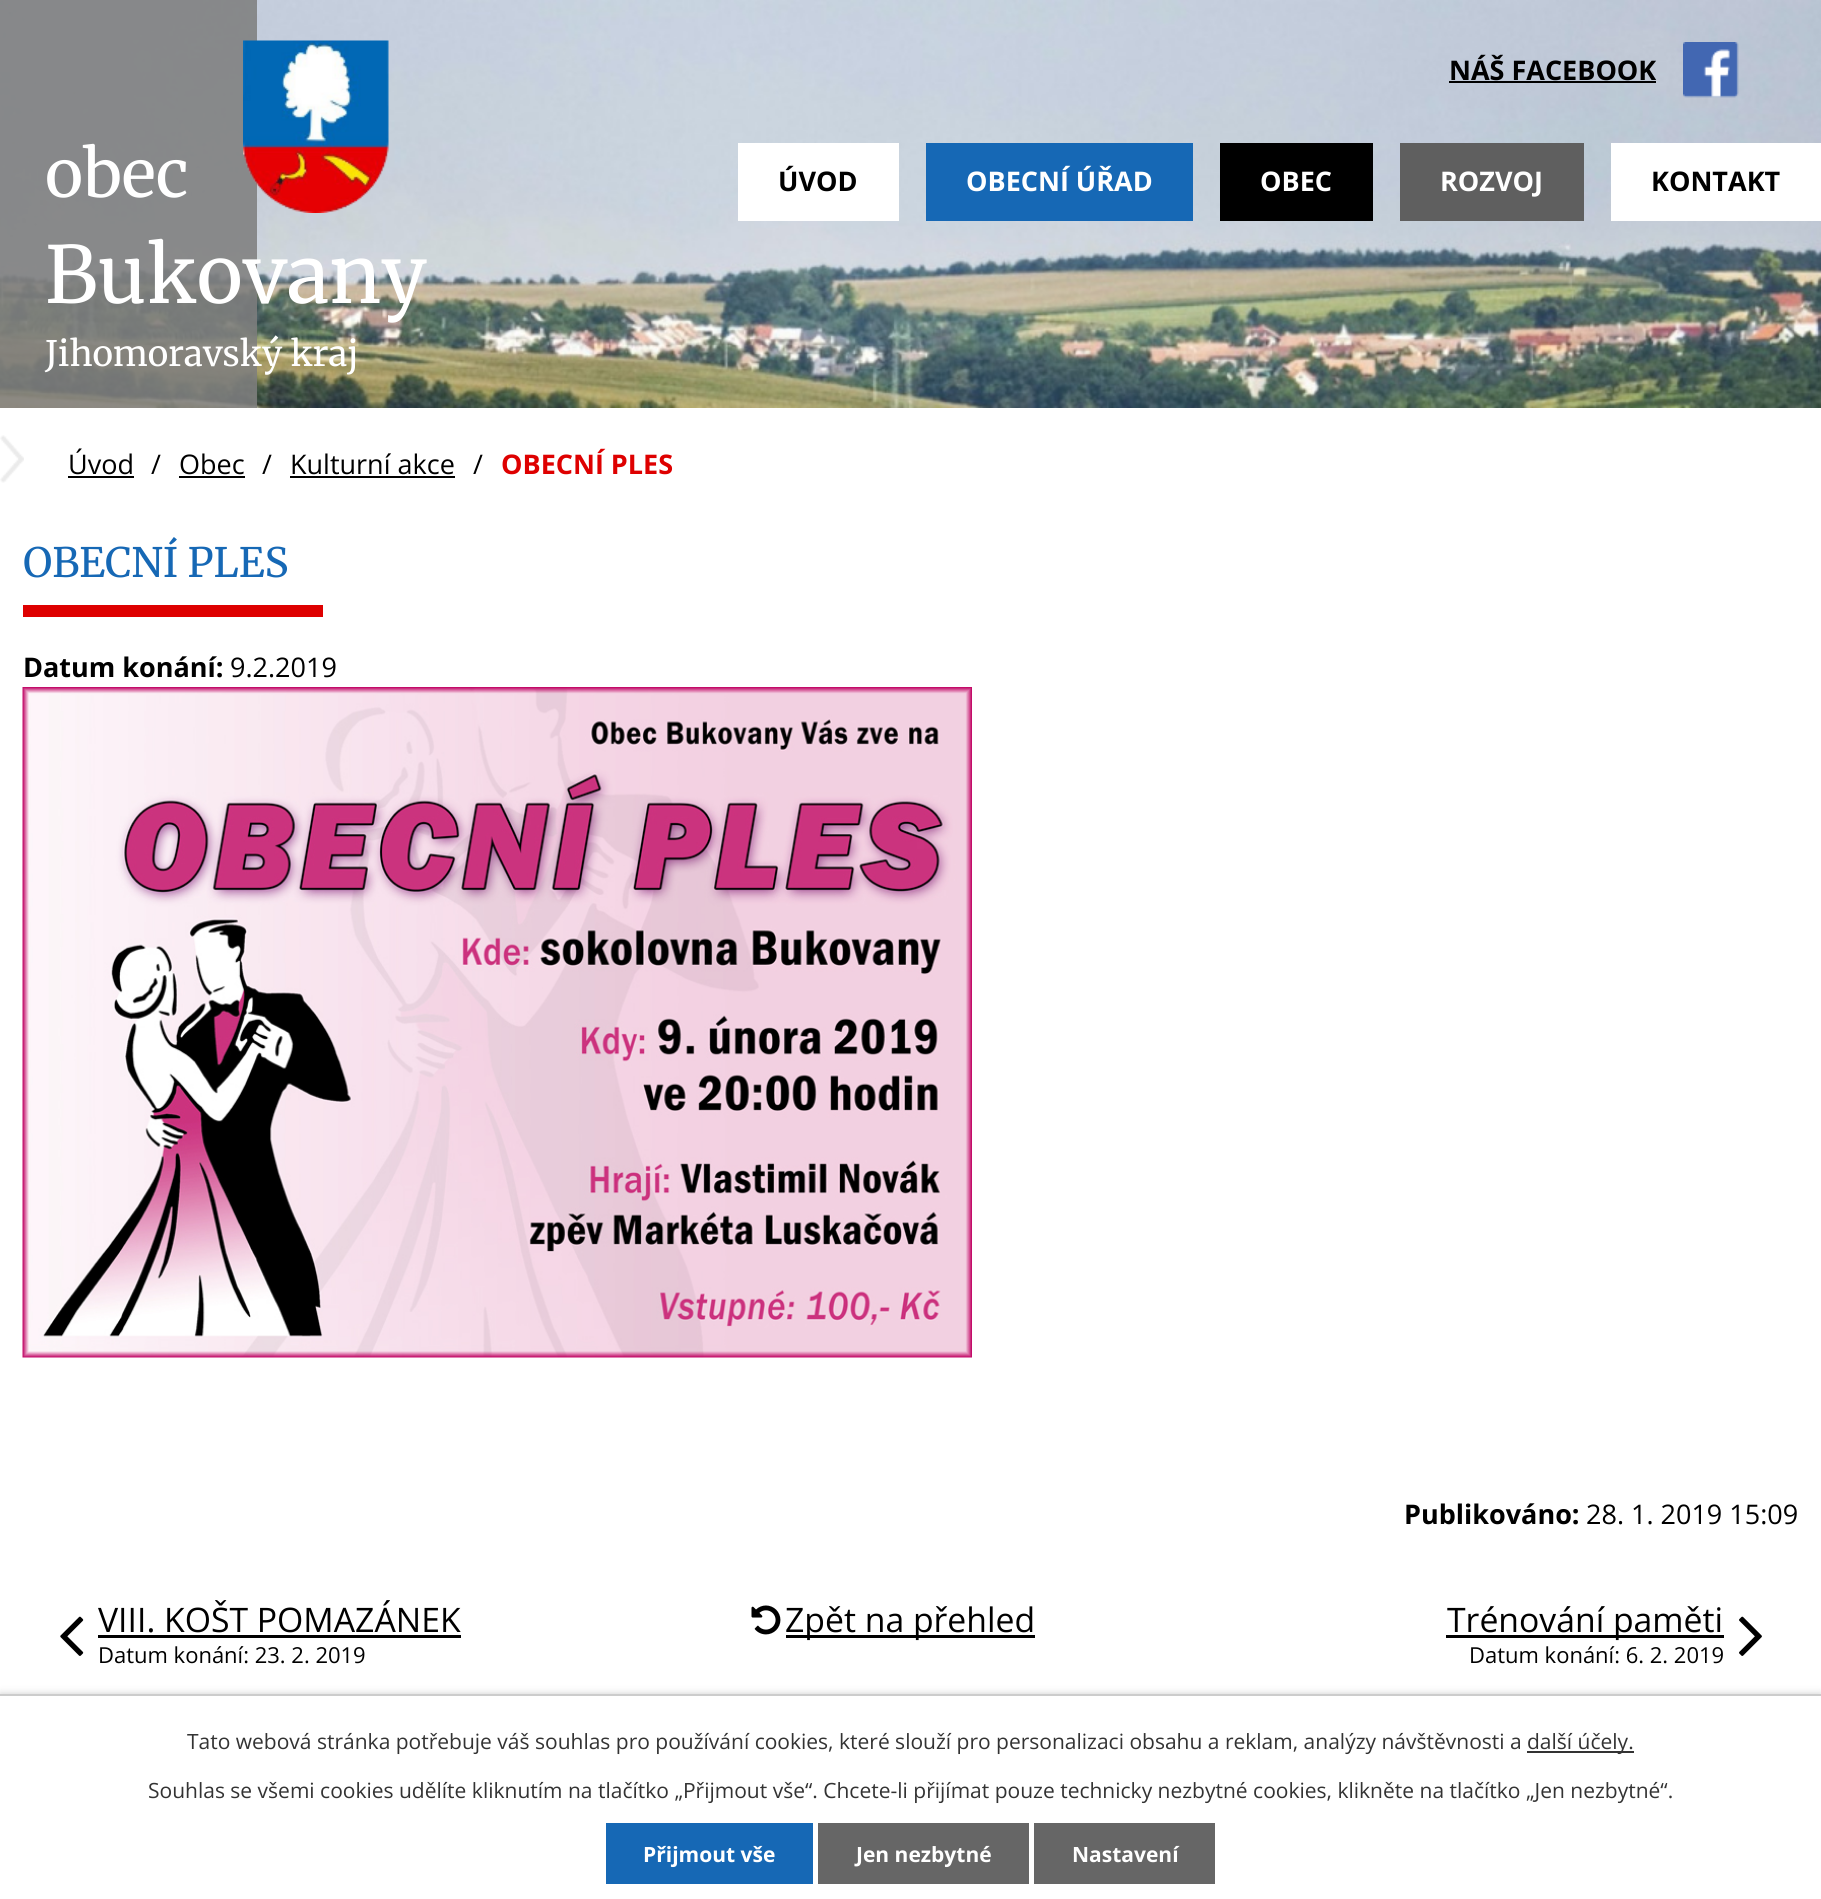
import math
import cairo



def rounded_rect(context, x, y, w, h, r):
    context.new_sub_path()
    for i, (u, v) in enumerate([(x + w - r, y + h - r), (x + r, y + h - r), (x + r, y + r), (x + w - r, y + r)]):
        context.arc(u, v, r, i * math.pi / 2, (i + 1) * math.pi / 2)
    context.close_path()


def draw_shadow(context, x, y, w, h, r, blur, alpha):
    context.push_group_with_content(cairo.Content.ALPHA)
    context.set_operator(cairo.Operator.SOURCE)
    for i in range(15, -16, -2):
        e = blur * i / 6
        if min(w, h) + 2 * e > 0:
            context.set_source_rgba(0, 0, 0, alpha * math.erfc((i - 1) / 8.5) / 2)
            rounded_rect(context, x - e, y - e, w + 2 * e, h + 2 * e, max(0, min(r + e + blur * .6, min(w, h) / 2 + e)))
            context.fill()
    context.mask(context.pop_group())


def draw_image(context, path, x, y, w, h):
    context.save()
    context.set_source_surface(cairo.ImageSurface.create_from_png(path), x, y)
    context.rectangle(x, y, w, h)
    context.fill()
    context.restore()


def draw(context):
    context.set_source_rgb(1, 1, 1)
    context.paint()
    draw_image(context, "images/1.png", 0, 0, 1821, 408)
    draw_image(context, "images/2.png", 1683, 42, 56, 56)
    context.set_source_rgb(0, 0, 0)
    context.rectangle(1449, 81, 207, 2)
    context.fill()
    context.set_source_rgba(127 / 255, 127 / 255, 127 / 255, 0.87)
    context.rectangle(0, 0, 257, 408)
    context.fill()
    draw_image(context, "images/3.png", 243, 40, 146, 173)
    context.set_source_rgb(1, 1, 1)
    context.rectangle(738, 143, 161, 78)
    context.fill()
    context.set_source_rgb(22 / 255, 104 / 255, 181 / 255)
    context.rectangle(926, 143, 267, 78)
    context.fill()
    context.set_source_rgb(0, 0, 0)
    context.rectangle(1220, 143, 153, 78)
    context.fill()
    context.set_source_rgb(95 / 255, 95 / 255, 95 / 255)
    context.rectangle(1400, 143, 184, 78)
    context.fill()
    context.set_source_rgb(1, 1, 1)
    context.rectangle(1611, 143, 210, 78)
    context.fill()
    draw_image(context, "images/4.png", 0, 435, 24, 48)
    context.set_source_rgb(0, 0, 0)
    context.rectangle(68, 476, 66, 2)
    context.fill()
    context.rectangle(179, 476, 66, 2)
    context.fill()
    context.rectangle(290, 476, 165, 2)
    context.fill()
    context.set_source_rgb(222 / 255, 0, 0)
    context.rectangle(23, 605, 300, 12)
    context.fill()
    draw_image(context, "images/5.png", 22, 687, 950, 671)
    draw_image(context, "images/6.png", 60, 1616, 24, 40)
    context.set_source_rgb(0, 0, 0)
    context.rectangle(98, 1635, 363, 3)
    context.fill()
    draw_image(context, "images/7.png", 751, 1605, 30, 30)
    context.rectangle(786, 1635, 249, 3)
    context.fill()
    context.rectangle(1446, 1635, 278, 3)
    context.fill()
    draw_image(context, "images/8.png", 1739, 1616, 23, 40)
    context.set_source_rgb(0, 0, 0)
    draw_shadow(context, 0, 1694, 1821, 205, 0, 4, 0.2)
    context.set_source_rgb(1, 1, 1)
    context.rectangle(0, 1696, 1821, 203)
    context.fill()
    context.set_source_rgb(204 / 255, 204 / 255, 204 / 255)
    context.rectangle(0, 1694, 1821, 2)
    context.fill()
    context.set_source_rgb(51 / 255, 51 / 255, 51 / 255)
    context.rectangle(1527, 1751, 107, 2)
    context.fill()
    context.set_source_rgb(22 / 255, 104 / 255, 181 / 255)
    context.rectangle(606, 1823, 207, 61)
    context.fill()
    context.set_source_rgb(102 / 255, 102 / 255, 102 / 255)
    context.rectangle(818, 1823, 211, 61)
    context.fill()
    context.rectangle(1034, 1823, 181, 61)
    context.fill()
    context.select_font_face("Open Sans", cairo.FontSlant.NORMAL, cairo.FontWeight.BOLD)
    context.set_font_size(27)
    context.set_source_rgb(0, 0, 0)
    context.move_to(1449, 80)
    context.show_text("NÁŠ FACEBOOK")
    context.select_font_face("Merriweather Light")
    context.set_font_size(65)
    context.set_source_rgb(1, 1, 1)
    context.move_to(45, 197)
    context.show_text("obec")
    context.set_font_size(78.5)
    context.move_to(45, 303)
    context.show_text("Bukovany")
    context.set_font_size(35)
    context.move_to(45, 366)
    context.show_text("Jihomoravský kraj")
    context.select_font_face("Open Sans", cairo.FontSlant.NORMAL, cairo.FontWeight.BOLD)
    context.set_font_size(27)
    context.set_source_rgb(0, 0, 0)
    context.move_to(778, 191)
    context.show_text("ÚVOD")
    context.set_source_rgb(1, 1, 1)
    context.move_to(966, 191)
    context.show_text("OBECNÍ ÚŘAD")
    context.move_to(1260, 191)
    context.show_text("OBEC")
    context.move_to(1440, 191)
    context.show_text("ROZVOJ")
    context.set_source_rgb(0, 0, 0)
    context.move_to(1651, 191)
    context.show_text("KONTAKT")
    context.select_font_face("Open Sans")
    context.move_to(68, 474)
    context.show_text("Úvod")
    context.move_to(151, 474)
    context.show_text("/")
    context.move_to(179, 474)
    context.show_text("Obec")
    context.move_to(262, 474)
    context.show_text("/")
    context.move_to(290, 474)
    context.show_text("Kulturní akce")
    context.move_to(473, 474)
    context.show_text("/")
    context.select_font_face("Open Sans", cairo.FontSlant.NORMAL, cairo.FontWeight.BOLD)
    context.set_source_rgb(222 / 255, 0, 0)
    context.move_to(501, 474)
    context.show_text("OBECNÍ PLES")
    context.select_font_face("Merriweather Light")
    context.set_font_size(40.5)
    context.set_source_rgb(22 / 255, 104 / 255, 181 / 255)
    context.move_to(23, 577)
    context.show_text("OBECNÍ PLES")
    context.select_font_face("Open Sans", cairo.FontSlant.NORMAL, cairo.FontWeight.BOLD)
    context.set_font_size(27)
    context.set_source_rgb(0, 0, 0)
    context.move_to(23, 677)
    context.show_text("Datum konání:")
    context.select_font_face("Open Sans")
    context.move_to(230, 677)
    context.show_text("9.2.2019")
    context.select_font_face("Open Sans", cairo.FontSlant.NORMAL, cairo.FontWeight.BOLD)
    context.move_to(1404, 1524)
    context.show_text("Publikováno:")
    context.select_font_face("Open Sans")
    context.move_to(1586, 1524)
    context.show_text("28. 1. 2019 15:09")
    context.set_font_size(33.75)
    context.move_to(98, 1632)
    context.show_text("VIII. KOŠT POMAZÁNEK")
    context.set_font_size(22)
    context.move_to(98, 1663)
    context.show_text("Datum konání: 23. 2. 2019")
    context.set_font_size(33.75)
    context.move_to(785, 1632)
    context.show_text("Zpět na přehled")
    context.move_to(1447, 1632)
    context.show_text("Trénování paměti")
    context.set_font_size(22)
    context.move_to(1469, 1663)
    context.show_text("Datum konání: 6. 2. 2019")
    context.set_font_size(21)
    context.set_source_rgb(51 / 255, 51 / 255, 51 / 255)
    context.move_to(187, 1749)
    context.show_text("Tato webová stránka potřebuje váš souhlas pro používání cookies, které slouží pro personalizaci obsahu a reklam, analýzy návštěvnosti a")
    context.move_to(1527, 1749)
    context.show_text("další účely.")
    context.move_to(148, 1798)
    context.show_text("Souhlas se všemi cookies udělíte kliknutím na tlačítko „Přijmout vše“. Chcete-li přijímat pouze technicky nezbytné cookies, klikněte na tlačítko „Jen nezbytné“.")
    context.select_font_face("Open Sans", cairo.FontSlant.NORMAL, cairo.FontWeight.BOLD)
    context.set_source_rgb(1, 1, 1)
    context.move_to(643, 1862)
    context.show_text("Přijmout vše")
    context.move_to(856, 1862)
    context.show_text("Jen nezbytné")
    context.move_to(1072, 1862)
    context.show_text("Nastavení")


surface = cairo.ImageSurface(cairo.Format.RGB24, 1821, 1899)
context = cairo.Context(surface)
options = cairo.FontOptions()
options.set_hint_metrics(cairo.HintMetrics.OFF)
options.set_hint_style(cairo.HintStyle.NONE)
context.set_font_options(options)
context.set_miter_limit(4)
draw(context)
surface.write_to_png("out.png")
